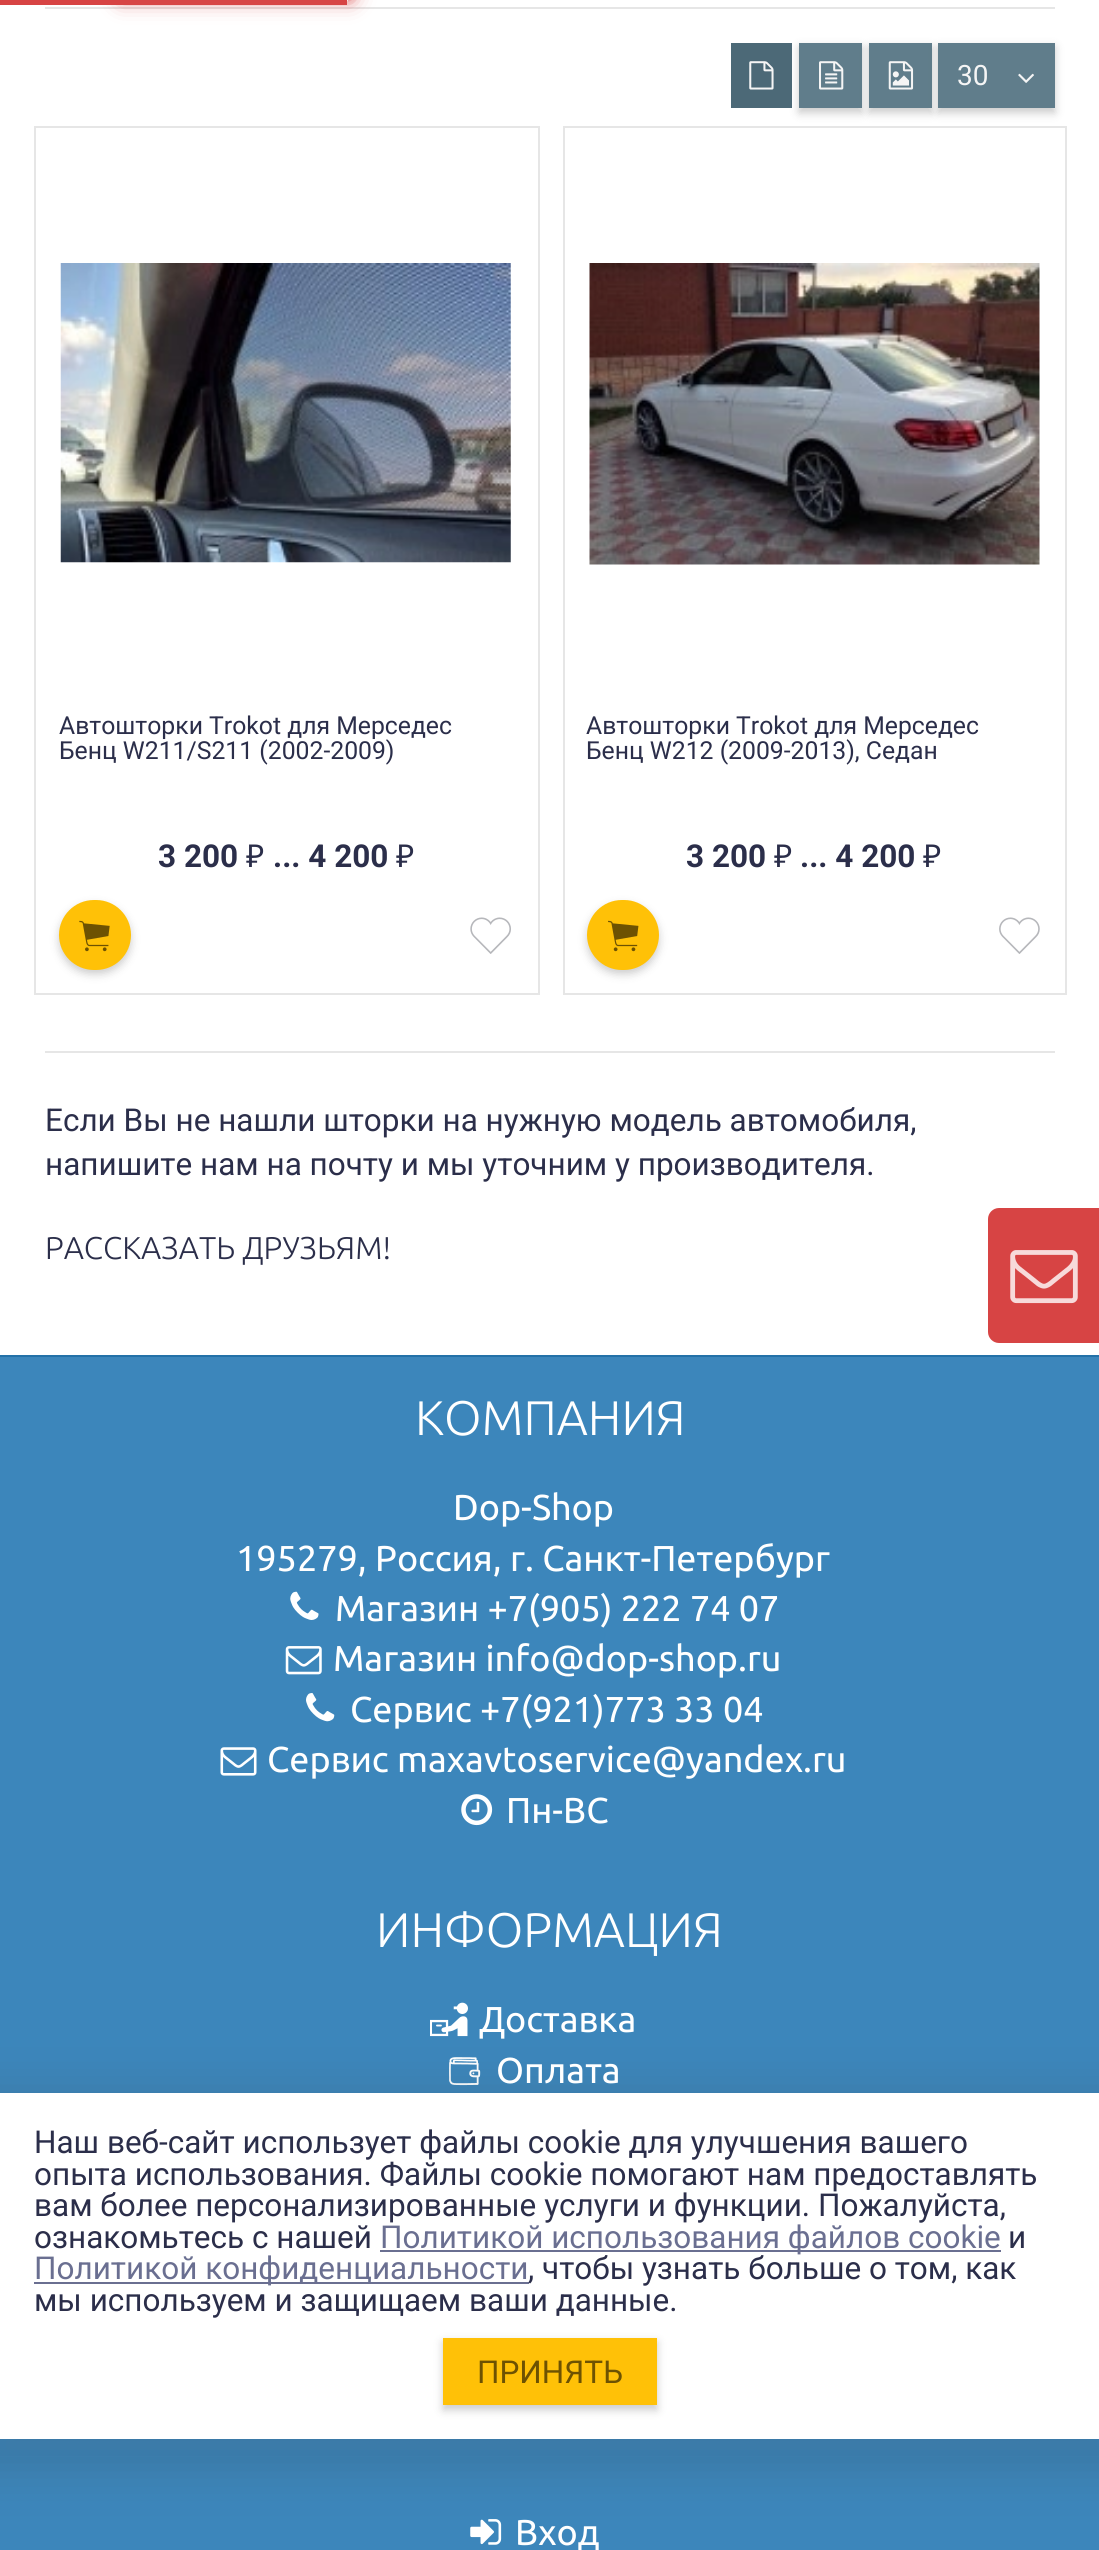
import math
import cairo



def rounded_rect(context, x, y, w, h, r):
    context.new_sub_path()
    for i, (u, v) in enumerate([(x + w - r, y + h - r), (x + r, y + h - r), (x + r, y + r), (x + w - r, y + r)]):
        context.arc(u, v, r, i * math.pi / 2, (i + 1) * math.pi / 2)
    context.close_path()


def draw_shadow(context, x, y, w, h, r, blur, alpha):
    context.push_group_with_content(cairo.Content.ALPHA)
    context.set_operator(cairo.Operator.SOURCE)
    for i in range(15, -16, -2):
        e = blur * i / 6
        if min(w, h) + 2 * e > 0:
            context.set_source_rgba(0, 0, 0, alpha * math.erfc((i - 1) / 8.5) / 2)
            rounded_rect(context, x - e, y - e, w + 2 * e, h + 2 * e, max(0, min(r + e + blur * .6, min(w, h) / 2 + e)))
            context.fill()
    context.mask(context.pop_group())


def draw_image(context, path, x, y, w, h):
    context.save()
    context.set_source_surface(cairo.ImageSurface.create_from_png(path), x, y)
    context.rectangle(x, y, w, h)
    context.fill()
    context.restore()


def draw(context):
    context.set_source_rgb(1, 1, 1)
    context.paint()
    context.set_source_rgb(215 / 255, 68 / 255, 68 / 255)
    context.rectangle(0, 0, 347, 5)
    context.fill()
    context.set_source_rgb(230 / 255, 230 / 255, 230 / 255)
    context.rectangle(45, 7, 1010, 2)
    context.fill()
    context.save()
    context.set_fill_rule(cairo.FillRule.EVEN_ODD)
    context.new_path()
    context.move_to(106, 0)
    context.line_to(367, 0)
    context.line_to(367, 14)
    context.line_to(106, 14)
    context.close_path()
    context.move_to(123.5, -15)
    context.line_to(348, -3)
    context.line_to(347.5, 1.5)
    context.line_to(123, -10.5)
    context.close_path()
    context.clip()
    context.set_source_rgb(215 / 255, 68 / 255, 68 / 255)
    draw_shadow(context, 124, -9, 225, 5, 0, 5.5, 1)
    context.restore()
    context.save()
    context.set_fill_rule(cairo.FillRule.EVEN_ODD)
    context.new_path()
    context.move_to(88, 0)
    context.line_to(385, 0)
    context.line_to(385, 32)
    context.line_to(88, 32)
    context.close_path()
    context.move_to(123.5, -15)
    context.line_to(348, -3)
    context.line_to(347.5, 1.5)
    context.line_to(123, -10.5)
    context.close_path()
    context.clip()
    context.set_source_rgb(215 / 255, 68 / 255, 68 / 255)
    draw_shadow(context, 124, -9, 225, 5, 0, 11.5, 1)
    context.restore()
    context.set_source_rgb(76 / 255, 105 / 255, 119 / 255)
    context.rectangle(731, 43, 61, 65)
    context.fill()
    draw_image(context, "images/1.png", 749, 61, 25, 29)
    context.rectangle(564, 127, 502, 867)
    context.set_source_rgb(230 / 255, 230 / 255, 230 / 255)
    context.stroke()
    context.set_source_rgb(0, 0, 0)
    draw_shadow(context, 799, 47, 63, 66, 0, 4.5, 0.2)
    context.set_source_rgb(96 / 255, 125 / 255, 139 / 255)
    context.rectangle(799, 43, 63, 65)
    context.fill()
    draw_image(context, "images/2.png", 819, 61, 25, 29)
    context.set_source_rgb(0, 0, 0)
    draw_shadow(context, 869, 47, 63, 66, 0, 4.5, 0.2)
    context.set_source_rgb(96 / 255, 125 / 255, 139 / 255)
    context.rectangle(869, 43, 63, 65)
    context.fill()
    draw_image(context, "images/3.png", 888, 61, 26, 29)
    context.set_source_rgb(0, 0, 0)
    draw_shadow(context, 938, 47, 117, 66, 0, 4.5, 0.2)
    context.set_source_rgb(96 / 255, 125 / 255, 139 / 255)
    context.rectangle(938, 43, 117, 65)
    context.fill()
    draw_image(context, "images/4.png", 1018, 73, 16, 10)
    context.rectangle(35, 127, 504, 867)
    context.set_source_rgb(230 / 255, 230 / 255, 230 / 255)
    context.stroke()
    draw_image(context, "images/5.png", 60, 263, 451, 300)
    context.set_source_rgb(0, 0, 0)
    draw_shadow(context, 59, 905, 72, 69, 34.5, 4.5, 0.2)
    context.set_source_rgb(1, 193 / 255, 7 / 255)
    rounded_rect(context, 59, 900, 72, 70, 35)
    context.fill()
    draw_image(context, "images/6.png", 79, 920, 31, 32)
    draw_image(context, "images/7.png", 470, 917, 41, 37)
    draw_image(context, "images/8.png", 589, 263, 451, 302)
    context.set_source_rgb(0, 0, 0)
    draw_shadow(context, 587, 905, 72, 69, 34.5, 4.5, 0.2)
    context.set_source_rgb(1, 193 / 255, 7 / 255)
    rounded_rect(context, 587, 900, 72, 70, 35)
    context.fill()
    draw_image(context, "images/9.png", 608, 920, 31, 32)
    draw_image(context, "images/10.png", 999, 917, 41, 37)
    context.set_source_rgb(230 / 255, 230 / 255, 230 / 255)
    context.rectangle(45, 1051, 1010, 2)
    context.fill()
    context.set_source_rgb(60 / 255, 134 / 255, 187 / 255)
    context.rectangle(0, 1357, 1099, 1193)
    context.fill()
    context.set_source_rgb(35 / 255, 113 / 255, 168 / 255)
    context.rectangle(0, 1355, 1099, 2)
    context.fill()
    draw_image(context, "images/11.png", 290, 1591, 29, 29)
    draw_image(context, "images/12.png", 285, 1646, 37, 29)
    draw_image(context, "images/13.png", 306, 1693, 29, 29)
    draw_image(context, "images/14.png", 220, 1747, 37, 29)
    draw_image(context, "images/15.png", 461, 1794, 32, 32)
    draw_image(context, "images/16.png", 430, 2002, 38, 35)
    draw_image(context, "images/17.png", 449, 2057, 32, 29)
    draw_image(context, "images/18.png", 470, 2519, 32, 26)
    context.set_source_rgb(50 / 255, 50 / 255, 50 / 255)
    draw_shadow(context, -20, 2088, 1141, 387, 0, 22.5, 0.15)
    context.set_source_rgb(1, 1, 1)
    context.rectangle(0, 2093, 1099, 346)
    context.fill()
    context.set_source_rgb(106 / 255, 111 / 255, 145 / 255)
    context.rectangle(380, 2250, 621, 2)
    context.fill()
    context.rectangle(34, 2282, 495, 2)
    context.fill()
    context.set_source_rgb(0, 0, 0)
    draw_shadow(context, 443, 2342, 214, 68, 0, 4.5, 0.2)
    context.set_source_rgb(1, 193 / 255, 7 / 255)
    context.rectangle(443, 2338, 214, 67)
    context.fill()
    context.set_source_rgb(215 / 255, 68 / 255, 68 / 255)
    context.new_path()
    context.move_to(999, 1208)
    context.line_to(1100, 1208)
    context.line_to(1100, 1343)
    context.line_to(999, 1343)
    context.curve_to(993, 1343, 988, 1338, 988, 1332)
    context.line_to(988, 1219)
    context.curve_to(988, 1213, 993, 1208, 999, 1208)
    context.close_path()
    context.fill()
    draw_image(context, "images/19.png", 1010, 1250, 68, 54)
    context.select_font_face("Roboto")
    context.set_font_size(28)
    context.set_source_rgb(245 / 255, 245 / 255, 245 / 255)
    context.move_to(957, 85)
    context.show_text("30")
    context.set_font_size(24.75)
    context.set_source_rgb(43 / 255, 46 / 255, 74 / 255)
    context.move_to(59, 734)
    context.show_text("Автошторки Trokot для Мерседес")
    context.move_to(59, 759)
    context.show_text("Бенц W211/S211 (2002-2009)")
    context.select_font_face("Roboto", cairo.FontSlant.NORMAL, cairo.FontWeight.BOLD)
    context.set_font_size(31.5)
    context.move_to(158, 867)
    context.show_text("3 200")
    context.select_font_face("Noto Sans")
    context.move_to(246, 867)
    context.show_text("₽")
    context.select_font_face("Roboto", cairo.FontSlant.NORMAL, cairo.FontWeight.BOLD)
    context.move_to(273, 867)
    context.show_text("... 4 200")
    context.select_font_face("Noto Sans")
    context.move_to(396, 867)
    context.show_text("₽")
    context.select_font_face("Roboto")
    context.set_font_size(24.75)
    context.move_to(586, 734)
    context.show_text("Автошторки Trokot для Мерседес")
    context.move_to(586, 759)
    context.show_text("Бенц W212 (2009-2013), Седан")
    context.select_font_face("Roboto", cairo.FontSlant.NORMAL, cairo.FontWeight.BOLD)
    context.set_font_size(31.5)
    context.move_to(686, 867)
    context.show_text("3 200")
    context.select_font_face("Noto Sans")
    context.move_to(774, 867)
    context.show_text("₽")
    context.select_font_face("Roboto", cairo.FontSlant.NORMAL, cairo.FontWeight.BOLD)
    context.move_to(800, 867)
    context.show_text("... 4 200")
    context.select_font_face("Noto Sans")
    context.move_to(923, 867)
    context.show_text("₽")
    context.select_font_face("Roboto")
    context.move_to(45, 1131)
    context.show_text("Если Вы не нашли шторки на нужную модель автомобиля,")
    context.move_to(45, 1175)
    context.show_text("напишите нам на почту и мы уточним у производителя.")
    context.select_font_face("Ubuntu Light")
    context.move_to(45, 1259)
    context.show_text("РАССКАЗАТЬ ДРУЗЬЯМ!")
    context.set_font_size(48.5)
    context.set_source_rgb(1, 1, 1)
    context.move_to(415, 1435)
    context.show_text("КОМПАНИЯ")
    context.select_font_face("Ubuntu")
    context.set_font_size(36)
    context.move_to(453, 1520)
    context.show_text("Dop-Shop")
    context.move_to(236, 1571)
    context.show_text("195279, Россия, г. Санкт-Петербург")
    context.move_to(335, 1621)
    context.show_text("Магазин +7(905) 222 74 07")
    context.move_to(333, 1671)
    context.show_text("Магазин info@dop-shop.ru")
    context.move_to(350, 1722)
    context.show_text("Сервис +7(921)773 33 04")
    context.move_to(267, 1772)
    context.show_text("Сервис maxavtoservice@yandex.ru")
    context.move_to(506, 1823)
    context.show_text("Пн-ВС")
    context.select_font_face("Ubuntu Light")
    context.set_font_size(48.5)
    context.move_to(376, 1947)
    context.show_text("ИНФОРМАЦИЯ")
    context.select_font_face("Ubuntu")
    context.set_font_size(36)
    context.move_to(479, 2032)
    context.show_text("Доставка")
    context.move_to(496, 2083)
    context.show_text("Оплата")
    context.move_to(515, 2545)
    context.show_text("Вход")
    context.select_font_face("Roboto")
    context.set_font_size(31.5)
    context.set_source_rgb(43 / 255, 46 / 255, 74 / 255)
    context.move_to(34, 2153)
    context.show_text("Наш веб-сайт использует файлы cookie для улучшения вашего")
    context.move_to(34, 2185)
    context.show_text("опыта использования. Файлы cookie помогают нам предоставлять")
    context.move_to(34, 2216)
    context.show_text("вам более персонализированные услуги и функции. Пожалуйста,")
    context.move_to(34, 2248)
    context.show_text("ознакомьтесь с нашей")
    context.set_source_rgb(106 / 255, 111 / 255, 145 / 255)
    context.move_to(380, 2248)
    context.show_text("Политикой использования файлов cookie")
    context.set_source_rgb(43 / 255, 46 / 255, 74 / 255)
    context.move_to(1008, 2248)
    context.show_text("и")
    context.set_source_rgb(106 / 255, 111 / 255, 145 / 255)
    context.move_to(34, 2279)
    context.show_text("Политикой конфиденциальности")
    context.set_source_rgb(43 / 255, 46 / 255, 74 / 255)
    context.move_to(528, 2279)
    context.show_text(", чтобы узнать больше о том, как")
    context.move_to(34, 2311)
    context.show_text("мы используем и защищаем ваши данные.")
    context.set_source_rgb(109 / 255, 82 / 255, 2 / 255)
    context.move_to(477, 2383)
    context.show_text("ПРИНЯТЬ")


surface = cairo.ImageSurface(cairo.Format.RGB24, 1099, 2550)
context = cairo.Context(surface)
options = cairo.FontOptions()
options.set_hint_metrics(cairo.HintMetrics.OFF)
options.set_hint_style(cairo.HintStyle.NONE)
context.set_font_options(options)
context.set_miter_limit(4)
draw(context)
surface.write_to_png("out.png")
